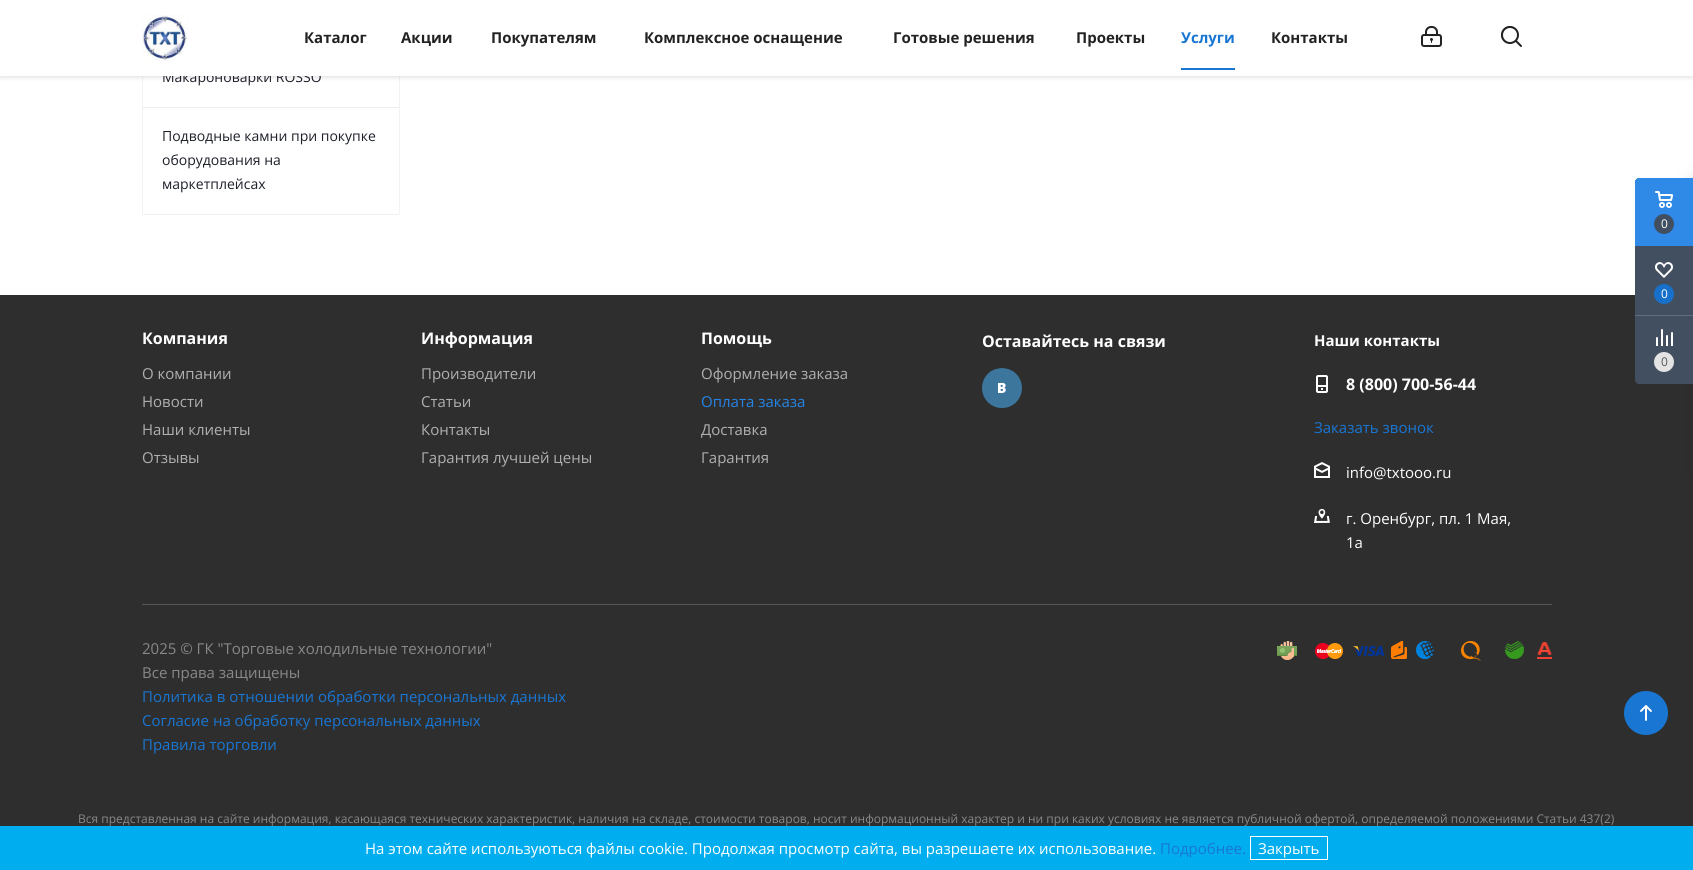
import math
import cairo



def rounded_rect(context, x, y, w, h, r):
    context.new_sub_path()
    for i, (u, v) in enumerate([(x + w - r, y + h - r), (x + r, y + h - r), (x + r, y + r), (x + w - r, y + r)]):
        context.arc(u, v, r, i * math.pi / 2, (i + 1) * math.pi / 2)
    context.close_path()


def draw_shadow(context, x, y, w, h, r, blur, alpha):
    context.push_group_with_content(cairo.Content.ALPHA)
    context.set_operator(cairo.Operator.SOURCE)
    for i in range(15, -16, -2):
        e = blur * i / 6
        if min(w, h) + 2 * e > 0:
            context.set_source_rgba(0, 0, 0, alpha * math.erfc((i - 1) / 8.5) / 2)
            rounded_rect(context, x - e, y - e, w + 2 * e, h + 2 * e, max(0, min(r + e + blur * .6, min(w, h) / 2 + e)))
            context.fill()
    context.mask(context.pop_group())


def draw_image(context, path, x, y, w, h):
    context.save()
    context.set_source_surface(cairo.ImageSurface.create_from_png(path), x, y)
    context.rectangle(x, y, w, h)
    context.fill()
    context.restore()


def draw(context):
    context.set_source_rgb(1, 1, 1)
    context.paint()
    rounded_rect(context, 142.5, -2.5, 257, 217, 1.5)
    context.set_source_rgb(242 / 255, 242 / 255, 242 / 255)
    context.set_line_width(1)
    context.stroke()
    context.set_source_rgb(0, 0, 0)
    draw_shadow(context, 0, 1, 1693, 76, 0, 2.5, 0.14)
    context.set_source_rgb(235 / 255, 238 / 255, 241 / 255)
    context.rectangle(143, 107, 256, 1)
    context.fill()
    context.set_source_rgb(46 / 255, 46 / 255, 47 / 255)
    context.rectangle(0, 295, 1693, 531)
    context.fill()
    context.set_source_rgb(44 / 255, 44 / 255, 44 / 255)
    draw_shadow(context, 1693, 184, 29, 291, 2, 9, 0.4)
    context.set_source_rgb(66 / 255, 79 / 255, 96 / 255)
    context.new_path()
    context.move_to(1639, 178)
    context.line_to(1693, 178)
    context.line_to(1693, 384)
    context.line_to(1639, 384)
    context.curve_to(1637, 384, 1635, 382, 1635, 380)
    context.line_to(1635, 182)
    context.curve_to(1635, 180, 1637, 178, 1639, 178)
    context.close_path()
    context.fill()
    context.set_source_rgb(46 / 255, 138 / 255, 230 / 255)
    context.new_path()
    context.move_to(1639, 178)
    context.line_to(1693, 178)
    context.line_to(1693, 246)
    context.line_to(1635, 246)
    context.line_to(1635, 182)
    context.curve_to(1635, 180, 1637, 178, 1639, 178)
    context.close_path()
    context.fill()
    draw_image(context, "images/4.png", 1655, 191, 18, 17)
    context.set_source_rgb(66 / 255, 79 / 255, 96 / 255)
    context.arc(1664, 224, 10, 0, 2 * math.pi)
    context.fill()
    draw_image(context, "images/5.png", 1655, 262, 18, 16)
    context.set_source_rgb(23 / 255, 113 / 255, 202 / 255)
    context.arc(1664, 294, 10, 0, 2 * math.pi)
    context.fill()
    context.set_source_rgb(99 / 255, 111 / 255, 125 / 255)
    context.rectangle(1635, 315, 58, 1)
    context.fill()
    draw_image(context, "images/6.png", 1656, 329, 17, 17)
    context.set_source_rgb(227 / 255, 227 / 255, 227 / 255)
    context.arc(1664, 362, 10, 0, 2 * math.pi)
    context.fill()
    draw_image(context, "images/7.png", 982, 368, 40, 40)
    draw_image(context, "images/8.png", 1316, 375, 12, 18)
    draw_image(context, "images/9.png", 1314, 462, 16, 16)
    draw_image(context, "images/10.png", 1314, 508, 16, 15)
    context.set_source_rgb(85 / 255, 85 / 255, 85 / 255)
    context.rectangle(142, 604, 1410, 1)
    context.fill()
    draw_image(context, "images/11.png", 1277, 641, 20, 19)
    draw_image(context, "images/12.png", 1315, 643, 28, 17)
    draw_image(context, "images/13.png", 1353, 645, 31, 11)
    draw_image(context, "images/14.png", 1391, 641, 16, 18)
    draw_image(context, "images/15.png", 1416, 641, 18, 19)
    draw_image(context, "images/16.png", 1461, 641, 20, 20)
    draw_image(context, "images/17.png", 1505, 641, 19, 18)
    draw_image(context, "images/18.png", 1537, 642, 15, 17)
    context.set_source_rgb(25 / 255, 118 / 255, 210 / 255)
    context.arc(1646, 713, 22, 0, 2 * math.pi)
    context.fill()
    draw_image(context, "images/19.png", 1640, 705, 12, 16)
    context.set_source_rgb(0, 174 / 255, 239 / 255)
    context.rectangle(0, 826, 1693, 44)
    context.fill()
    context.rectangle(1250.5, 836.5, 77, 23)
    context.set_source_rgb(1, 1, 1)
    context.stroke()
    context.select_font_face("Open Sans")
    context.set_font_size(14)
    context.set_source_rgb(29 / 255, 32 / 255, 41 / 255)
    context.move_to(162, 82)
    context.show_text("Макароноварки ROSSO")
    context.set_source_rgb(1, 1, 1)
    context.rectangle(0, 0, 1693, 76)
    context.fill()
    draw_image(context, "images/2.png", 1421, 26, 21, 21)
    draw_image(context, "images/1.png", 142, 15, 46, 46)
    context.select_font_face("Open Sans", cairo.FontSlant.NORMAL, cairo.FontWeight.BOLD)
    context.set_font_size(15)
    context.set_source_rgb(34 / 255, 34 / 255, 34 / 255)
    context.move_to(1271, 43)
    context.show_text("Контакты")
    context.set_source_rgb(25 / 255, 118 / 255, 210 / 255)
    context.rectangle(1181, 68, 54, 2)
    context.fill()
    context.move_to(1181, 43)
    context.show_text("Услуги")
    context.set_source_rgb(34 / 255, 34 / 255, 34 / 255)
    context.move_to(1076, 43)
    context.show_text("Проекты")
    context.move_to(893, 43)
    context.show_text("Готовые решения")
    context.move_to(644, 43)
    context.show_text("Комплексное оснащение")
    context.move_to(491, 43)
    context.show_text("Покупателям")
    context.move_to(401, 43)
    context.show_text("Акции")
    context.move_to(304, 43)
    context.show_text("Каталог")
    context.rectangle(1501, 26, 21, 21)
    context.fill()
    draw_image(context, "images/3.png", 1501, 26, 21, 21)
    context.select_font_face("Open Sans")
    context.set_font_size(14)
    context.set_source_rgb(29 / 255, 32 / 255, 41 / 255)
    context.move_to(162, 141)
    context.show_text("Подводные камни при покупке")
    context.move_to(162, 165)
    context.show_text("оборудования на")
    context.move_to(162, 189)
    context.show_text("маркетплейсах")
    context.set_font_size(12)
    context.set_source_rgb(1, 1, 1)
    context.move_to(1661, 228)
    context.show_text("0")
    context.move_to(1661, 298)
    context.show_text("0")
    context.set_source_rgb(85 / 255, 85 / 255, 85 / 255)
    context.move_to(1661, 366)
    context.show_text("0")
    context.select_font_face("Open Sans", cairo.FontSlant.NORMAL, cairo.FontWeight.BOLD)
    context.set_font_size(16)
    context.set_source_rgb(1, 1, 1)
    context.move_to(142, 344)
    context.show_text("Компания")
    context.select_font_face("Open Sans")
    context.set_font_size(15)
    context.set_source_rgb(176 / 255, 176 / 255, 176 / 255)
    context.move_to(142, 379)
    context.show_text("О компании")
    context.move_to(142, 407)
    context.show_text("Новости")
    context.move_to(142, 435)
    context.show_text("Наши клиенты")
    context.move_to(142, 463)
    context.show_text("Отзывы")
    context.select_font_face("Open Sans", cairo.FontSlant.NORMAL, cairo.FontWeight.BOLD)
    context.set_font_size(16)
    context.set_source_rgb(1, 1, 1)
    context.move_to(421, 344)
    context.show_text("Информация")
    context.select_font_face("Open Sans")
    context.set_font_size(15)
    context.set_source_rgb(176 / 255, 176 / 255, 176 / 255)
    context.move_to(421, 379)
    context.show_text("Производители")
    context.move_to(421, 407)
    context.show_text("Статьи")
    context.move_to(421, 435)
    context.show_text("Контакты")
    context.move_to(421, 463)
    context.show_text("Гарантия лучшей цены")
    context.select_font_face("Open Sans", cairo.FontSlant.NORMAL, cairo.FontWeight.BOLD)
    context.set_font_size(16)
    context.set_source_rgb(1, 1, 1)
    context.move_to(701, 344)
    context.show_text("Помощь")
    context.select_font_face("Open Sans")
    context.set_font_size(15)
    context.set_source_rgb(176 / 255, 176 / 255, 176 / 255)
    context.move_to(701, 379)
    context.show_text("Оформление заказа")
    context.set_source_rgb(37 / 255, 133 / 255, 229 / 255)
    context.move_to(701, 407)
    context.show_text("Оплата заказа")
    context.set_source_rgb(176 / 255, 176 / 255, 176 / 255)
    context.move_to(701, 435)
    context.show_text("Доставка")
    context.move_to(701, 463)
    context.show_text("Гарантия")
    context.select_font_face("Open Sans", cairo.FontSlant.NORMAL, cairo.FontWeight.BOLD)
    context.set_font_size(16)
    context.set_source_rgb(1, 1, 1)
    context.move_to(982, 347)
    context.show_text("Оставайтесь на связи")
    context.set_font_size(15)
    context.move_to(1314, 346)
    context.show_text("Наши контакты")
    context.set_font_size(16)
    context.move_to(1346, 390)
    context.show_text("8 (800) 700-56-44")
    context.select_font_face("Open Sans")
    context.set_font_size(15)
    context.set_source_rgb(25 / 255, 118 / 255, 210 / 255)
    context.move_to(1314, 433)
    context.show_text("Заказать звонок")
    context.set_source_rgb(1, 1, 1)
    context.move_to(1346, 478)
    context.show_text("info@txtooo.ru")
    context.move_to(1346, 524)
    context.show_text("г. Оренбург, пл. 1 Мая,")
    context.move_to(1346, 548)
    context.show_text("1а")
    context.set_source_rgb(136 / 255, 136 / 255, 136 / 255)
    context.move_to(142, 654)
    context.show_text("2025 © ГК \"Торговые холодильные технологии\"")
    context.move_to(142, 678)
    context.show_text("Все права защищены")
    context.set_source_rgb(25 / 255, 118 / 255, 210 / 255)
    context.move_to(142, 702)
    context.show_text("Политика в отношении обработки персональных данных")
    context.move_to(142, 726)
    context.show_text("Согласие на обработку персональных данных")
    context.move_to(142, 750)
    context.show_text("Правила торговли")
    context.set_font_size(12)
    context.set_source_rgb(136 / 255, 136 / 255, 136 / 255)
    context.move_to(78, 823)
    context.show_text("Вся представленная на сайте информация, касающаяся технических характеристик, наличия на складе, стоимости товаров, носит информационный характер и ни при каких условиях не является публичной офертой, определяемой положениями Статьи 437(2)")
    context.set_font_size(15)
    context.set_source_rgb(1, 1, 1)
    context.move_to(365, 854)
    context.show_text("На этом сайте используються файлы cookie. Продолжая просмотр сайта, вы разрешаете их использование.")
    context.set_source_rgb(25 / 255, 118 / 255, 210 / 255)
    context.move_to(1160, 854)
    context.show_text("Подробнее.")
    context.set_source_rgb(1, 1, 1)
    context.move_to(1258, 854)
    context.show_text("Закрыть")


surface = cairo.ImageSurface(cairo.Format.RGB24, 1693, 870)
context = cairo.Context(surface)
options = cairo.FontOptions()
options.set_hint_metrics(cairo.HintMetrics.OFF)
options.set_hint_style(cairo.HintStyle.NONE)
context.set_font_options(options)
context.set_miter_limit(4)
draw(context)
surface.write_to_png("out.png")
